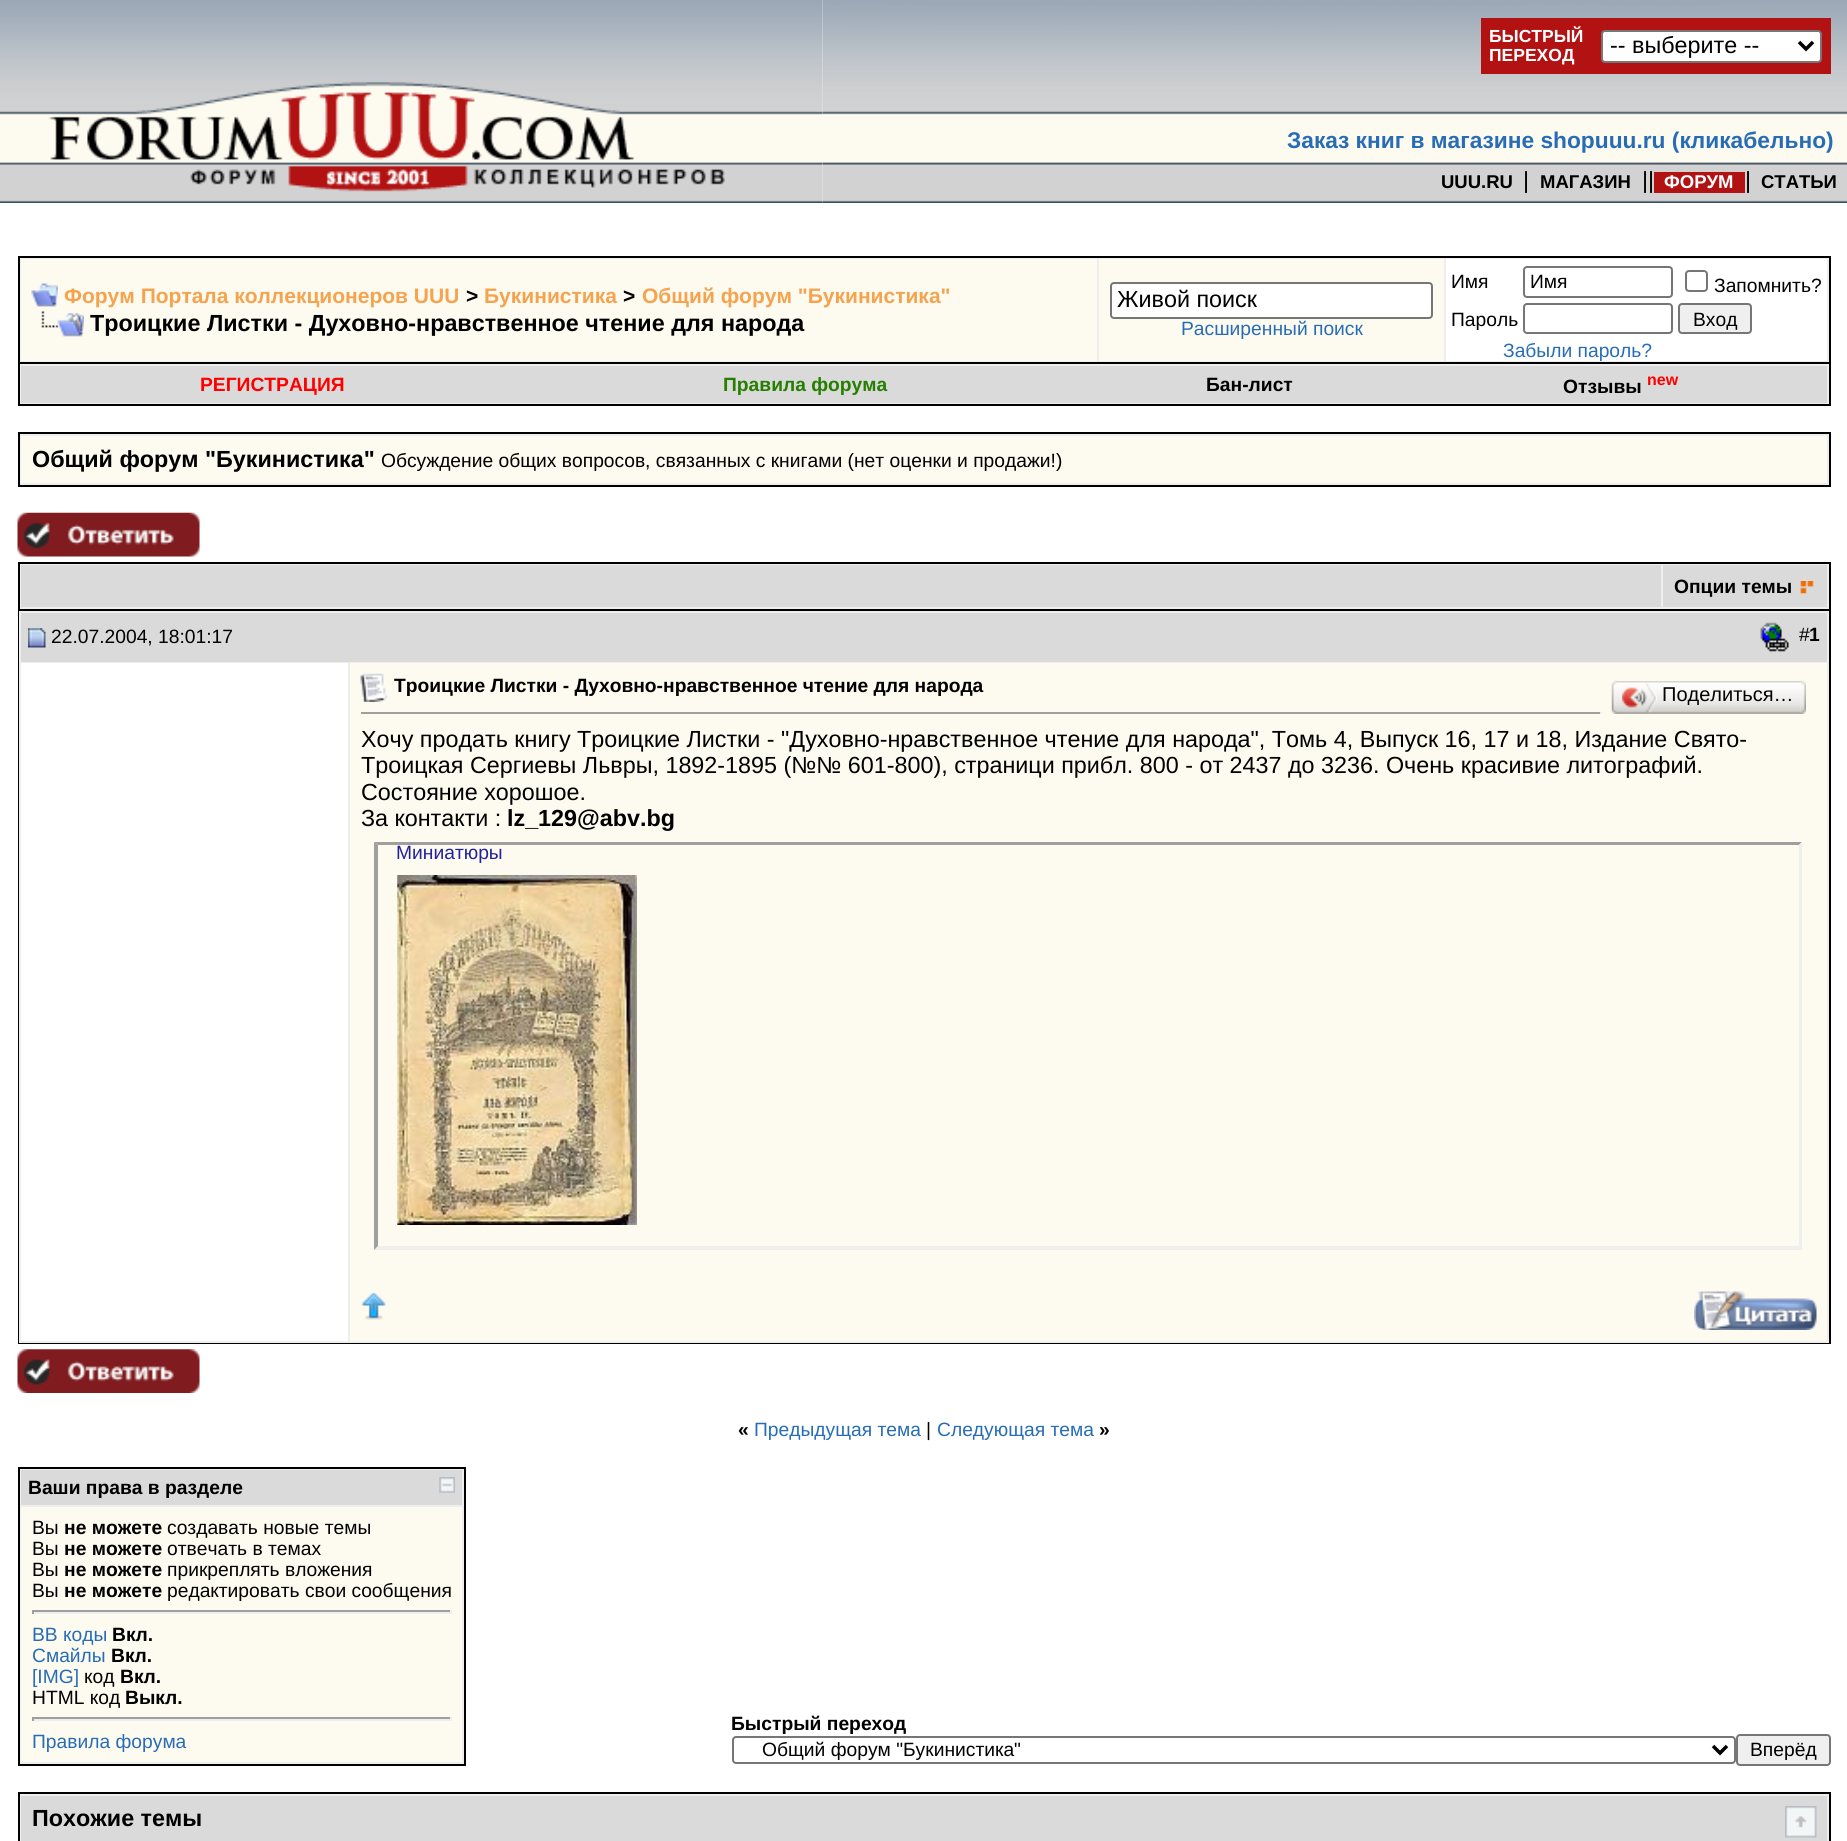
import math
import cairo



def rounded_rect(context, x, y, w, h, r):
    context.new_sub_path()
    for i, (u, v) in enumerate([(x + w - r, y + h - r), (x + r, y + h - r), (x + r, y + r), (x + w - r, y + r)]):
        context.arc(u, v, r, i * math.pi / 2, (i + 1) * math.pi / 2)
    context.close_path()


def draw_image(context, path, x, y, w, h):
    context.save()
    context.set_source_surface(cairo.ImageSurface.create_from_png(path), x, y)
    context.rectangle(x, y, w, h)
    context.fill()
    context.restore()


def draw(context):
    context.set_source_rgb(1, 1, 1)
    context.paint()
    draw_image(context, "images/2.png", 822, 0, 1025, 203)
    context.set_source_rgb(179 / 255, 18 / 255, 18 / 255)
    context.rectangle(1481, 18, 350, 56)
    context.fill()
    context.set_source_rgb(1, 1, 1)
    rounded_rect(context, 1602, 31, 219, 31, 3)
    context.fill_preserve()
    context.set_source_rgb(118 / 255, 118 / 255, 118 / 255)
    context.stroke()
    context.new_path()
    context.move_to(1799, 42)
    context.line_to(1806, 49)
    context.line_to(1813, 42)
    context.set_source_rgb(0, 0, 0)
    context.set_line_width(3.5)
    context.stroke()
    draw_image(context, "images/1.png", 0, 0, 823, 203)
    context.set_source_rgb(179 / 255, 18 / 255, 18 / 255)
    context.rectangle(1654, 172, 91, 21)
    context.fill()
    context.set_source_rgb(238 / 255, 238 / 255, 238 / 255)
    context.rectangle(19, 257, 1811, 106)
    context.fill_preserve()
    context.set_source_rgb(0, 0, 0)
    context.set_line_width(2)
    context.stroke()
    context.set_source_rgb(253 / 255, 250 / 255, 240 / 255)
    context.rectangle(21, 259, 1076, 102)
    context.fill()
    draw_image(context, "images/3.png", 31, 283, 27, 24)
    draw_image(context, "images/4.png", 41, 311, 43, 26)
    context.rectangle(1099, 259, 345, 102)
    context.fill()
    context.set_source_rgb(1, 1, 1)
    rounded_rect(context, 1111, 283, 321, 35, 3)
    context.fill_preserve()
    context.set_source_rgb(118 / 255, 118 / 255, 118 / 255)
    context.stroke()
    context.set_source_rgb(1, 1, 1)
    context.rectangle(1446, 259, 381, 102)
    context.fill()
    rounded_rect(context, 1524, 267, 148, 30, 3)
    context.set_source_rgb(118 / 255, 118 / 255, 118 / 255)
    context.stroke()
    rounded_rect(context, 1686, 271, 21, 20, 3)
    context.stroke()
    rounded_rect(context, 1524, 304, 148, 29, 3)
    context.stroke()
    context.set_source_rgb(239 / 255, 239 / 255, 239 / 255)
    rounded_rect(context, 1679, 304, 72, 29, 3)
    context.fill_preserve()
    context.set_source_rgb(118 / 255, 118 / 255, 118 / 255)
    context.stroke()
    context.set_source_rgb(238 / 255, 238 / 255, 238 / 255)
    context.rectangle(20, 364, 1809, 40)
    context.fill()
    context.set_source_rgb(0, 0, 0)
    context.rectangle(1829, 364, 2, 42)
    context.fill()
    context.rectangle(18, 404, 1813, 2)
    context.fill()
    context.rectangle(18, 364, 2, 42)
    context.fill()
    context.set_source_rgb(218 / 255, 218 / 255, 218 / 255)
    context.rectangle(21, 366, 1806, 37)
    context.fill()
    context.set_source_rgb(238 / 255, 238 / 255, 238 / 255)
    context.rectangle(19, 433, 1811, 53)
    context.fill_preserve()
    context.set_source_rgb(0, 0, 0)
    context.stroke()
    context.set_source_rgb(253 / 255, 250 / 255, 240 / 255)
    context.rectangle(21, 436, 1806, 47)
    context.fill()
    draw_image(context, "images/5.png", 17, 512, 183, 45)
    context.set_source_rgb(238 / 255, 238 / 255, 238 / 255)
    context.rectangle(20, 564, 1809, 45)
    context.fill()
    context.set_source_rgb(0, 0, 0)
    context.rectangle(18, 562, 1813, 2)
    context.fill()
    context.rectangle(1829, 562, 2, 47)
    context.fill()
    context.rectangle(18, 562, 2, 47)
    context.fill()
    context.set_source_rgb(218 / 255, 218 / 255, 218 / 255)
    context.rectangle(21, 565, 1640, 42)
    context.fill()
    context.rectangle(1663, 565, 164, 42)
    context.fill()
    draw_image(context, "images/6.png", 1800, 581, 14, 13)
    context.rectangle(19, 610, 1811, 733)
    context.set_source_rgb(0, 0, 0)
    context.stroke()
    context.set_source_rgb(218 / 255, 218 / 255, 218 / 255)
    context.rectangle(21, 613, 1806, 49)
    context.fill()
    context.set_source_rgb(238 / 255, 238 / 255, 238 / 255)
    context.rectangle(19, 611, 1810, 2)
    context.fill()
    context.rectangle(19, 662, 331, 1)
    context.fill()
    context.rectangle(19, 611, 2, 670)
    context.fill()
    draw_image(context, "images/7.png", 28, 628, 18, 20)
    context.rectangle(1827, 611, 2, 731)
    context.fill()
    context.rectangle(350, 662, 1479, 1)
    context.fill()
    draw_image(context, "images/8.png", 1760, 622, 29, 30)
    context.rectangle(348, 663, 2, 679)
    context.fill()
    context.set_source_rgb(253 / 255, 250 / 255, 240 / 255)
    context.rectangle(350, 663, 1477, 678)
    context.fill()
    draw_image(context, "images/9.png", 360, 673, 28, 29)
    draw_image(context, "images/10.png", 1617, 681, 184, 33)
    draw_image(context, "images/11.png", 1611, 680, 6, 34)
    draw_image(context, "images/12.png", 1622, 682, 35, 31)
    draw_image(context, "images/13.png", 1800, 680, 6, 34)
    context.set_source_rgb(159 / 255, 159 / 255, 159 / 255)
    context.rectangle(361, 712, 1240, 2)
    context.fill()
    context.set_source_rgb(238 / 255, 238 / 255, 238 / 255)
    context.rectangle(1600, 712, 2, 2)
    context.fill()
    context.set_source_rgb(159 / 255, 159 / 255, 159 / 255)
    context.new_path()
    context.move_to(374, 842)
    context.line_to(1802, 842)
    context.line_to(1799, 845)
    context.line_to(378, 845)
    context.close_path()
    context.fill()
    context.set_source_rgb(239 / 255, 239 / 255, 239 / 255)
    context.new_path()
    context.move_to(1802, 842)
    context.line_to(1802, 1250)
    context.line_to(1799, 1246)
    context.line_to(1799, 845)
    context.close_path()
    context.fill()
    context.new_path()
    context.move_to(1802, 1250)
    context.line_to(374, 1250)
    context.line_to(378, 1246)
    context.line_to(1799, 1246)
    context.close_path()
    context.fill()
    context.set_source_rgb(159 / 255, 159 / 255, 159 / 255)
    context.new_path()
    context.move_to(374, 1250)
    context.line_to(374, 842)
    context.line_to(378, 845)
    context.line_to(378, 1246)
    context.close_path()
    context.fill()
    draw_image(context, "images/14.png", 397, 875, 240, 350)
    context.set_source_rgb(238 / 255, 238 / 255, 238 / 255)
    context.rectangle(19, 1341, 1810, 2)
    context.fill()
    context.rectangle(19, 1281, 2, 61)
    context.fill()
    draw_image(context, "images/15.png", 361, 1292, 25, 28)
    draw_image(context, "images/16.png", 1694, 1291, 123, 39)
    draw_image(context, "images/17.png", 17, 1349, 183, 44)
    context.rectangle(19, 1468, 446, 297)
    context.fill_preserve()
    context.set_source_rgb(0, 0, 0)
    context.stroke()
    context.set_source_rgb(218 / 255, 218 / 255, 218 / 255)
    context.rectangle(21, 1470, 441, 35)
    context.fill()
    draw_image(context, "images/18.png", 439, 1477, 16, 16)
    context.set_source_rgb(253 / 255, 250 / 255, 240 / 255)
    context.rectangle(21, 1507, 441, 255)
    context.fill()
    context.set_source_rgb(159 / 255, 159 / 255, 159 / 255)
    context.rectangle(32, 1610, 420, 2)
    context.fill()
    context.set_source_rgb(238 / 255, 238 / 255, 238 / 255)
    context.rectangle(450, 1610, 2, 4)
    context.fill()
    context.rectangle(32, 1612, 420, 2)
    context.fill()
    context.set_source_rgb(159 / 255, 159 / 255, 159 / 255)
    context.rectangle(32, 1610, 2, 4)
    context.fill()
    context.rectangle(32, 1717, 420, 2)
    context.fill()
    context.set_source_rgb(238 / 255, 238 / 255, 238 / 255)
    context.rectangle(450, 1717, 2, 4)
    context.fill()
    context.rectangle(32, 1719, 420, 2)
    context.fill()
    context.set_source_rgb(159 / 255, 159 / 255, 159 / 255)
    context.rectangle(32, 1717, 2, 4)
    context.fill()
    rounded_rect(context, 733, 1737, 1002, 26, 3)
    context.set_source_rgb(118 / 255, 118 / 255, 118 / 255)
    context.stroke()
    context.new_path()
    context.move_to(1713, 1746)
    context.line_to(1720, 1753)
    context.line_to(1727, 1746)
    context.set_source_rgb(0, 0, 0)
    context.set_line_width(3.5)
    context.stroke()
    context.set_source_rgb(239 / 255, 239 / 255, 239 / 255)
    rounded_rect(context, 1737, 1735, 93, 30, 3)
    context.fill_preserve()
    context.set_source_rgb(118 / 255, 118 / 255, 118 / 255)
    context.set_line_width(2)
    context.stroke()
    context.set_source_rgb(238 / 255, 238 / 255, 238 / 255)
    context.rectangle(19, 1793, 1811, 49)
    context.fill_preserve()
    context.set_source_rgb(0, 0, 0)
    context.stroke()
    context.set_source_rgb(218 / 255, 218 / 255, 218 / 255)
    context.rectangle(21, 1796, 1806, 45)
    context.fill()
    draw_image(context, "images/19.png", 1785, 1806, 32, 32)
    context.select_font_face("Liberation Sans", cairo.FontSlant.NORMAL, cairo.FontWeight.BOLD)
    context.set_font_size(17.5)
    context.set_source_rgb(1, 1, 1)
    context.move_to(1489, 42)
    context.show_text("БЫСТРЫЙ")
    context.move_to(1489, 61)
    context.show_text("ПЕРЕХОД")
    context.select_font_face("Liberation Sans")
    context.set_font_size(23.33)
    context.set_source_rgb(0, 0, 0)
    context.move_to(1610, 53)
    context.show_text("-- выберите --")
    context.select_font_face("Liberation Sans", cairo.FontSlant.NORMAL, cairo.FontWeight.BOLD)
    context.set_font_size(22.75)
    context.set_source_rgb(39 / 255, 109 / 255, 182 / 255)
    context.move_to(1287, 148)
    context.show_text("Заказ книг в магазине shopuuu.ru (кликабельно)")
    context.set_font_size(18.5)
    context.set_source_rgb(0, 0, 0)
    context.move_to(1441, 188)
    context.show_text("UUU.RU")
    context.select_font_face("Liberation Sans")
    context.set_font_size(23.33)
    context.move_to(1523, 188)
    context.show_text("|")
    context.select_font_face("Liberation Sans", cairo.FontSlant.NORMAL, cairo.FontWeight.BOLD)
    context.set_font_size(18.5)
    context.move_to(1540, 188)
    context.show_text("МАГАЗИН")
    context.select_font_face("Liberation Sans")
    context.set_font_size(23.33)
    context.move_to(1642, 188)
    context.show_text("||")
    context.select_font_face("Liberation Sans", cairo.FontSlant.NORMAL, cairo.FontWeight.BOLD)
    context.set_font_size(18.5)
    context.set_source_rgb(1, 1, 1)
    context.move_to(1664, 188)
    context.show_text("ФОРУМ")
    context.select_font_face("Liberation Sans")
    context.set_font_size(23.33)
    context.set_source_rgb(0, 0, 0)
    context.move_to(1745, 188)
    context.show_text("|")
    context.select_font_face("Liberation Sans", cairo.FontSlant.NORMAL, cairo.FontWeight.BOLD)
    context.set_font_size(18.5)
    context.move_to(1761, 188)
    context.show_text("СТАТЬИ")
    context.set_font_size(21)
    context.set_source_rgb(245 / 255, 163 / 255, 78 / 255)
    context.move_to(64, 303)
    context.show_text("Форум Портала коллекционеров UUU")
    context.set_source_rgb(0, 0, 0)
    context.move_to(466, 303)
    context.show_text(">")
    context.set_source_rgb(245 / 255, 163 / 255, 78 / 255)
    context.move_to(484, 303)
    context.show_text("Букинистика")
    context.set_source_rgb(0, 0, 0)
    context.move_to(623, 303)
    context.show_text(">")
    context.set_source_rgb(245 / 255, 163 / 255, 78 / 255)
    context.move_to(642, 303)
    context.show_text("Общий форум \"Букинистика\"")
    context.set_font_size(23.33)
    context.set_source_rgb(0, 0, 0)
    context.move_to(90, 331)
    context.show_text("Троицкие Листки - Духовно-нравственное чтение для народа")
    context.select_font_face("Liberation Sans")
    context.move_to(1117, 307)
    context.show_text("Живой поиск")
    context.set_font_size(19.25)
    context.set_source_rgb(39 / 255, 109 / 255, 182 / 255)
    context.move_to(1181, 335)
    context.show_text("Расширенный поиск")
    context.set_source_rgb(0, 0, 0)
    context.move_to(1451, 288)
    context.show_text("Имя")
    context.move_to(1530, 288)
    context.show_text("Имя")
    context.move_to(1714, 292)
    context.show_text("Запомнить?")
    context.move_to(1451, 326)
    context.show_text("Пароль")
    context.move_to(1693, 326)
    context.show_text("Вход")
    context.set_source_rgb(39 / 255, 109 / 255, 182 / 255)
    context.move_to(1503, 357)
    context.show_text("Забыли пароль?")
    context.select_font_face("Liberation Sans", cairo.FontSlant.NORMAL, cairo.FontWeight.BOLD)
    context.set_source_rgb(1, 0, 0)
    context.move_to(200, 391)
    context.show_text("РЕГИСТРАЦИЯ")
    context.set_source_rgb(38 / 255, 127 / 255, 0)
    context.move_to(723, 391)
    context.show_text("Правила форума")
    context.set_source_rgb(0, 0, 0)
    context.move_to(1206, 391)
    context.show_text("Бан-лист")
    context.move_to(1563, 393)
    context.show_text("Отзывы")
    context.set_font_size(16)
    context.set_source_rgb(1, 0, 0)
    context.move_to(1647, 385)
    context.show_text("new")
    context.set_font_size(23.33)
    context.set_source_rgb(0, 0, 0)
    context.move_to(32, 467)
    context.show_text("Общий форум \"Букинистика\"")
    context.select_font_face("Liberation Sans")
    context.set_font_size(19.25)
    context.move_to(381, 467)
    context.show_text("Обсуждение общих вопросов, связанных с книгами (нет оценки и продажи!)")
    context.select_font_face("Liberation Sans", cairo.FontSlant.NORMAL, cairo.FontWeight.BOLD)
    context.move_to(1674, 593)
    context.show_text("Опции темы")
    context.select_font_face("Liberation Sans")
    context.move_to(51, 643)
    context.show_text("22.07.2004, 18:01:17")
    context.move_to(1799, 641)
    context.show_text("#")
    context.select_font_face("Liberation Sans", cairo.FontSlant.NORMAL, cairo.FontWeight.BOLD)
    context.move_to(1809, 641)
    context.show_text("1")
    context.move_to(394, 692)
    context.show_text("Троицкие Листки - Духовно-нравственное чтение для народа")
    context.select_font_face("Liberation Sans")
    context.set_font_size(20)
    context.move_to(1662, 701)
    context.show_text("Поделиться…")
    context.set_font_size(23.33)
    context.move_to(361, 747)
    context.show_text("Хочу продать книгу Троицкие Листки - \"Духовно-нравственное чтение для народа\", Томь 4, Выпуск 16, 17 и 18, Издание Свято-")
    context.move_to(361, 773)
    context.show_text("Троицкая Сергиевы Львры, 1892-1895 (№№ 601-800), страници прибл. 800 - от 2437 до 3236. Очень красивие литографий.")
    context.move_to(361, 800)
    context.show_text("Состояние хорошое.")
    context.move_to(361, 826)
    context.show_text("За контакти :")
    context.select_font_face("Liberation Sans", cairo.FontSlant.NORMAL, cairo.FontWeight.BOLD)
    context.move_to(507, 826)
    context.show_text("lz_129@abv.bg")
    context.select_font_face("Liberation Sans")
    context.set_font_size(19.25)
    context.set_source_rgb(34 / 255, 34 / 255, 156 / 255)
    context.move_to(396, 859)
    context.show_text("Миниатюры")
    context.select_font_face("Liberation Sans", cairo.FontSlant.NORMAL, cairo.FontWeight.BOLD)
    context.set_source_rgb(0, 0, 0)
    context.move_to(738, 1436)
    context.show_text("«")
    context.select_font_face("Liberation Sans")
    context.set_source_rgb(39 / 255, 109 / 255, 182 / 255)
    context.move_to(754, 1436)
    context.show_text("Предыдущая тема")
    context.set_source_rgb(0, 0, 0)
    context.move_to(926, 1436)
    context.show_text("|")
    context.set_source_rgb(39 / 255, 109 / 255, 182 / 255)
    context.move_to(937, 1436)
    context.show_text("Следующая тема")
    context.select_font_face("Liberation Sans", cairo.FontSlant.NORMAL, cairo.FontWeight.BOLD)
    context.set_source_rgb(0, 0, 0)
    context.move_to(1099, 1436)
    context.show_text("»")
    context.move_to(28, 1494)
    context.show_text("Ваши права в разделе")
    context.select_font_face("Liberation Sans")
    context.move_to(32, 1534)
    context.show_text("Вы")
    context.select_font_face("Liberation Sans", cairo.FontSlant.NORMAL, cairo.FontWeight.BOLD)
    context.move_to(64, 1534)
    context.show_text("не можете")
    context.select_font_face("Liberation Sans")
    context.move_to(167, 1534)
    context.show_text("создавать новые темы")
    context.move_to(32, 1555)
    context.show_text("Вы")
    context.select_font_face("Liberation Sans", cairo.FontSlant.NORMAL, cairo.FontWeight.BOLD)
    context.move_to(64, 1555)
    context.show_text("не можете")
    context.select_font_face("Liberation Sans")
    context.move_to(167, 1555)
    context.show_text("отвечать в темах")
    context.move_to(32, 1576)
    context.show_text("Вы")
    context.select_font_face("Liberation Sans", cairo.FontSlant.NORMAL, cairo.FontWeight.BOLD)
    context.move_to(64, 1576)
    context.show_text("не можете")
    context.select_font_face("Liberation Sans")
    context.move_to(167, 1576)
    context.show_text("прикреплять вложения")
    context.move_to(32, 1597)
    context.show_text("Вы")
    context.select_font_face("Liberation Sans", cairo.FontSlant.NORMAL, cairo.FontWeight.BOLD)
    context.move_to(64, 1597)
    context.show_text("не можете")
    context.select_font_face("Liberation Sans")
    context.move_to(167, 1597)
    context.show_text("редактировать свои сообщения")
    context.set_source_rgb(39 / 255, 109 / 255, 182 / 255)
    context.move_to(32, 1641)
    context.show_text("BB коды")
    context.select_font_face("Liberation Sans", cairo.FontSlant.NORMAL, cairo.FontWeight.BOLD)
    context.set_source_rgb(0, 0, 0)
    context.move_to(112, 1641)
    context.show_text("Вкл.")
    context.select_font_face("Liberation Sans")
    context.set_source_rgb(39 / 255, 109 / 255, 182 / 255)
    context.move_to(32, 1662)
    context.show_text("Смайлы")
    context.select_font_face("Liberation Sans", cairo.FontSlant.NORMAL, cairo.FontWeight.BOLD)
    context.set_source_rgb(0, 0, 0)
    context.move_to(111, 1662)
    context.show_text("Вкл.")
    context.select_font_face("Liberation Sans")
    context.set_source_rgb(39 / 255, 109 / 255, 182 / 255)
    context.move_to(32, 1683)
    context.show_text("[IMG]")
    context.set_source_rgb(0, 0, 0)
    context.move_to(84, 1683)
    context.show_text("код")
    context.select_font_face("Liberation Sans", cairo.FontSlant.NORMAL, cairo.FontWeight.BOLD)
    context.move_to(120, 1683)
    context.show_text("Вкл.")
    context.select_font_face("Liberation Sans")
    context.move_to(32, 1704)
    context.show_text("HTML код")
    context.select_font_face("Liberation Sans", cairo.FontSlant.NORMAL, cairo.FontWeight.BOLD)
    context.move_to(125, 1704)
    context.show_text("Выкл.")
    context.select_font_face("Liberation Sans")
    context.set_source_rgb(39 / 255, 109 / 255, 182 / 255)
    context.move_to(32, 1748)
    context.show_text("Правила форума")
    context.select_font_face("Liberation Sans", cairo.FontSlant.NORMAL, cairo.FontWeight.BOLD)
    context.set_source_rgb(0, 0, 0)
    context.move_to(731, 1730)
    context.show_text("Быстрый переход")
    context.select_font_face("Liberation Sans")
    context.move_to(762, 1756)
    context.show_text("Общий форум \"Букинистика\"")
    context.move_to(1750, 1756)
    context.show_text("Вперёд")
    context.select_font_face("Liberation Sans", cairo.FontSlant.NORMAL, cairo.FontWeight.BOLD)
    context.set_font_size(23.33)
    context.move_to(32, 1826)
    context.show_text("Похожие темы")


surface = cairo.ImageSurface(cairo.Format.RGB24, 1847, 1841)
context = cairo.Context(surface)
options = cairo.FontOptions()
options.set_hint_metrics(cairo.HintMetrics.OFF)
options.set_hint_style(cairo.HintStyle.NONE)
context.set_font_options(options)
context.set_miter_limit(4)
draw(context)
surface.write_to_png("out.png")
